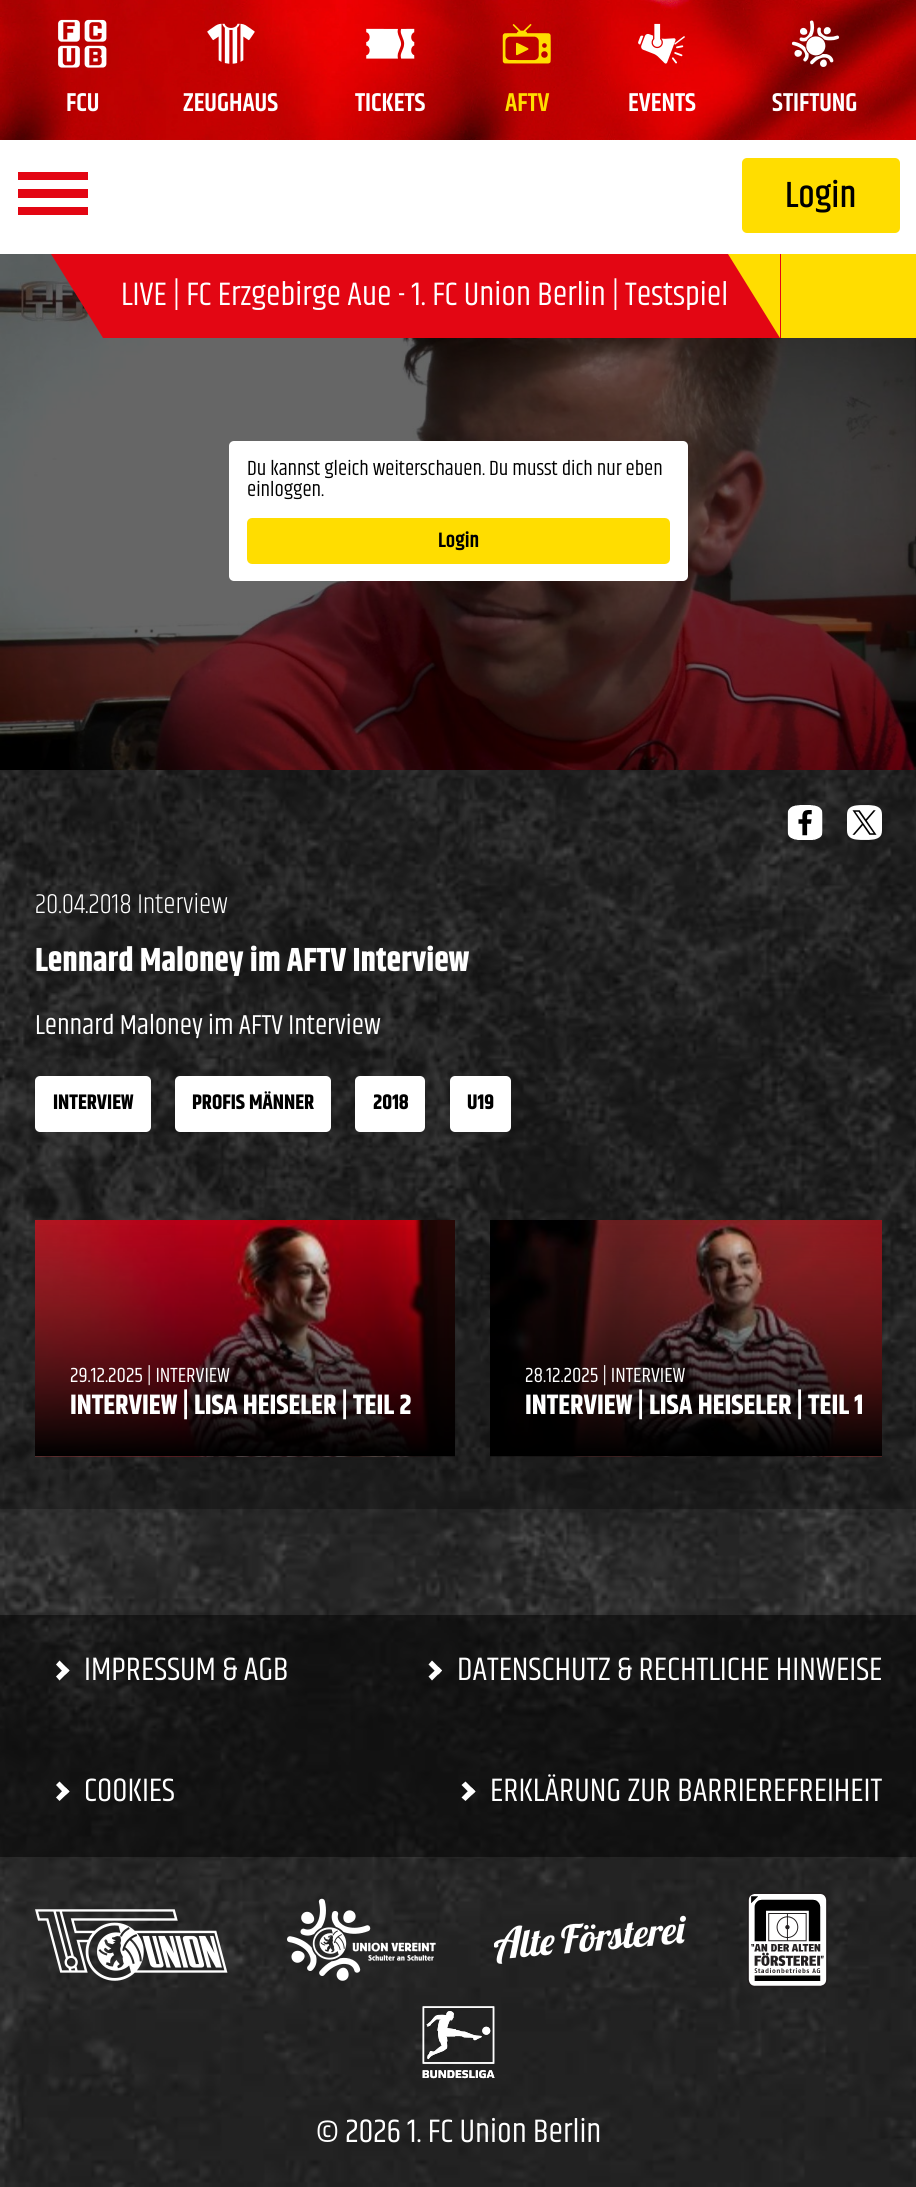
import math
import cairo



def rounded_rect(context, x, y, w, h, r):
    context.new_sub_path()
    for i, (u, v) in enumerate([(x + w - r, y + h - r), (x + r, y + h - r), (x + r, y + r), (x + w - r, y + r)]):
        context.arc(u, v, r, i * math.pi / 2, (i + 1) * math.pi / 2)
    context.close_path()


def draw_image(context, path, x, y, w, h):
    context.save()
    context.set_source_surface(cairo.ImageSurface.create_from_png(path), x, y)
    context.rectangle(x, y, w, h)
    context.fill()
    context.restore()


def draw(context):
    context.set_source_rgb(1, 1, 1)
    context.paint()
    draw_image(context, "images/1.png", 0, 770, 916, 1417)
    draw_image(context, "images/2.png", 0, 0, 916, 140)
    draw_image(context, "images/3.png", 58, 19, 49, 49)
    draw_image(context, "images/4.png", 207, 23, 48, 41)
    draw_image(context, "images/5.png", 366, 28, 49, 31)
    draw_image(context, "images/6.png", 502, 24, 49, 40)
    draw_image(context, "images/7.png", 638, 23, 47, 41)
    draw_image(context, "images/8.png", 791, 20, 49, 47)
    context.set_source_rgb(227 / 255, 6 / 255, 19 / 255)
    context.rectangle(18, 189, 70, 9)
    context.fill()
    context.rectangle(18, 172, 70, 8)
    context.fill()
    context.rectangle(18, 207, 70, 8)
    context.fill()
    context.set_source_rgb(1, 221 / 255, 0)
    rounded_rect(context, 742, 158, 158, 75, 5)
    context.fill()
    context.set_source_rgba(0, 0, 0, 0.3)
    context.rectangle(0, 770, 916, 739)
    context.fill()
    draw_image(context, "images/9.png", 0, 254, 916, 516)
    context.set_source_rgb(1, 221 / 255, 0)
    context.rectangle(781, 254, 135, 84)
    context.fill()
    context.set_source_rgb(227 / 255, 6 / 255, 19 / 255)
    context.rectangle(103, 254, 678, 84)
    context.fill()
    context.new_path()
    context.move_to(51, 254)
    context.line_to(103, 254)
    context.line_to(103, 338)
    context.close_path()
    context.fill()
    context.set_source_rgb(1, 221 / 255, 0)
    context.new_path()
    context.move_to(728, 254)
    context.line_to(780, 254)
    context.line_to(780, 338)
    context.close_path()
    context.fill()
    context.set_source_rgb(1, 1, 1)
    rounded_rect(context, 229, 441, 459, 140, 5)
    context.fill()
    context.set_source_rgb(1, 221 / 255, 0)
    rounded_rect(context, 249, 520, 419, 42, 3)
    context.fill_preserve()
    context.set_line_width(4)
    context.stroke()
    draw_image(context, "images/10.png", 787, 805, 36, 35)
    draw_image(context, "images/11.png", 847, 805, 35, 35)
    context.set_source_rgb(1, 1, 1)
    rounded_rect(context, 35, 1076, 116, 56, 5)
    context.fill()
    rounded_rect(context, 175, 1076, 156, 56, 5)
    context.fill()
    rounded_rect(context, 355, 1076, 70, 56, 5)
    context.fill()
    rounded_rect(context, 450, 1076, 61, 56, 5)
    context.fill()
    draw_image(context, "images/12.png", 35, 1220, 420, 237)
    gradient = cairo.LinearGradient(245, 1220, 245, 1456)
    gradient.add_color_stop_rgba(0, 0, 0, 0, 0)
    gradient.add_color_stop_rgba(1, 0, 0, 0, 1)
    context.set_source(gradient)
    context.rectangle(35, 1225, 420, 231)
    context.fill()
    draw_image(context, "images/13.png", 490, 1220, 392, 237)
    gradient = cairo.LinearGradient(700, 1220, 700, 1456)
    gradient.add_color_stop_rgba(0, 0, 0, 0, 0)
    gradient.add_color_stop_rgba(1, 0, 0, 0, 1)
    context.set_source(gradient)
    context.rectangle(490, 1225, 392, 231)
    context.fill()
    context.set_source_rgba(0, 0, 0, 0.5)
    context.rectangle(0, 1615, 916, 242)
    context.fill()
    context.set_source_rgb(1, 1, 1)
    context.new_path()
    context.move_to(59.5, 1660.5)
    context.line_to(69.5, 1670.5)
    context.line_to(65.5, 1674.5)
    context.line_to(56, 1664.5)
    context.close_path()
    context.fill()
    context.new_path()
    context.move_to(65.5, 1667)
    context.line_to(69.5, 1670.5)
    context.line_to(59.5, 1680.5)
    context.line_to(56, 1676.5)
    context.close_path()
    context.fill()
    context.new_path()
    context.move_to(432, 1660.5)
    context.line_to(442, 1670.5)
    context.line_to(438.5, 1674.5)
    context.line_to(428.5, 1664.5)
    context.close_path()
    context.fill()
    context.new_path()
    context.move_to(438.5, 1667)
    context.line_to(442, 1670.5)
    context.line_to(432, 1680.5)
    context.line_to(428.5, 1676.5)
    context.close_path()
    context.fill()
    context.new_path()
    context.move_to(59.5, 1781.5)
    context.line_to(69.5, 1791.5)
    context.line_to(65.5, 1795)
    context.line_to(56, 1785)
    context.close_path()
    context.fill()
    context.new_path()
    context.move_to(65.5, 1787.5)
    context.line_to(69.5, 1791.5)
    context.line_to(59.5, 1801)
    context.line_to(56, 1797.5)
    context.close_path()
    context.fill()
    context.new_path()
    context.move_to(465.5, 1781.5)
    context.line_to(475.5, 1791.5)
    context.line_to(471.5, 1795)
    context.line_to(461.5, 1785)
    context.close_path()
    context.fill()
    context.new_path()
    context.move_to(471.5, 1787.5)
    context.line_to(475.5, 1791.5)
    context.line_to(465.5, 1801)
    context.line_to(461.5, 1797.5)
    context.close_path()
    context.fill()
    draw_image(context, "images/14.png", 35, 1909, 193, 72)
    draw_image(context, "images/15.png", 287, 1898, 149, 83)
    draw_image(context, "images/16.png", 494, 1915, 192, 49)
    draw_image(context, "images/17.png", 747, 1892, 81, 96)
    draw_image(context, "images/18.png", 422, 2006, 73, 73)
    context.select_font_face("Khand SemiBold")
    context.set_font_size(26)
    context.move_to(66, 111)
    context.show_text("FCU")
    context.move_to(183, 111)
    context.show_text("ZEUGHAUS")
    context.move_to(355, 111)
    context.show_text("TICKETS")
    context.set_source_rgb(1, 221 / 255, 0)
    context.move_to(505, 111)
    context.show_text("AFTV")
    context.set_source_rgb(1, 1, 1)
    context.move_to(628, 111)
    context.show_text("EVENTS")
    context.move_to(772, 111)
    context.show_text("STIFTUNG")
    context.select_font_face("Khand Medium")
    context.set_font_size(37)
    context.set_source_rgb(0, 0, 0)
    context.move_to(785, 207)
    context.show_text("Login")
    context.select_font_face("Khand")
    context.set_font_size(33.25)
    context.set_source_rgb(1, 1, 1)
    context.move_to(121, 305)
    context.show_text("LIVE | FC Erzgebirge Aue - 1. FC Union Berlin | Testspiel")
    context.set_font_size(21)
    context.set_source_rgb(0, 0, 0)
    context.move_to(247, 475)
    context.show_text("Du kannst gleich weiterschauen. Du musst dich nur eben")
    context.move_to(247, 496)
    context.show_text("einloggen.")
    context.select_font_face("Khand SemiBold")
    context.move_to(438, 547)
    context.show_text("Login")
    context.select_font_face("Khand Light")
    context.set_font_size(28)
    context.set_source_rgb(1, 1, 1)
    context.move_to(35, 913)
    context.show_text("20.04.2018 Interview")
    context.select_font_face("Khand", cairo.FontSlant.NORMAL, cairo.FontWeight.BOLD)
    context.set_font_size(33.25)
    context.move_to(35, 971)
    context.show_text("Lennard Maloney im AFTV Interview")
    context.select_font_face("Khand")
    context.set_font_size(28)
    context.move_to(35, 1034)
    context.show_text("Lennard Maloney im AFTV Interview")
    context.select_font_face("Khand", cairo.FontSlant.NORMAL, cairo.FontWeight.BOLD)
    context.set_font_size(21)
    context.set_source_rgb(0, 0, 0)
    context.move_to(53, 1109)
    context.show_text("INTERVIEW")
    context.move_to(192, 1109)
    context.show_text("PROFIS MÄNNER")
    context.move_to(373, 1109)
    context.show_text("2018")
    context.move_to(467, 1109)
    context.show_text("U19")
    context.select_font_face("Khand")
    context.set_source_rgb(1, 1, 1)
    context.move_to(70, 1382)
    context.show_text("29.12.2025 | INTERVIEW")
    context.select_font_face("Khand", cairo.FontSlant.NORMAL, cairo.FontWeight.BOLD)
    context.set_font_size(28)
    context.move_to(70, 1414)
    context.show_text("INTERVIEW | LISA HEISELER | TEIL 2")
    context.select_font_face("Khand")
    context.set_font_size(21)
    context.move_to(525, 1382)
    context.show_text("28.12.2025 | INTERVIEW")
    context.select_font_face("Khand", cairo.FontSlant.NORMAL, cairo.FontWeight.BOLD)
    context.set_font_size(28)
    context.move_to(525, 1414)
    context.show_text("INTERVIEW | LISA HEISELER | TEIL 1")
    context.select_font_face("Khand")
    context.set_font_size(33.25)
    context.move_to(84, 1680)
    context.show_text("IMPRESSUM & AGB")
    context.move_to(457, 1680)
    context.show_text("DATENSCHUTZ & RECHTLICHE HINWEISE")
    context.move_to(84, 1801)
    context.show_text("COOKIES")
    context.move_to(490, 1801)
    context.show_text("ERKLÄRUNG ZUR BARRIEREFREIHEIT")
    context.move_to(316, 2142)
    context.show_text("© 2026 1. FC Union Berlin")


surface = cairo.ImageSurface(cairo.Format.RGB24, 916, 2187)
context = cairo.Context(surface)
options = cairo.FontOptions()
options.set_hint_metrics(cairo.HintMetrics.OFF)
options.set_hint_style(cairo.HintStyle.NONE)
context.set_font_options(options)
context.set_miter_limit(4)
draw(context)
surface.write_to_png("out.png")
